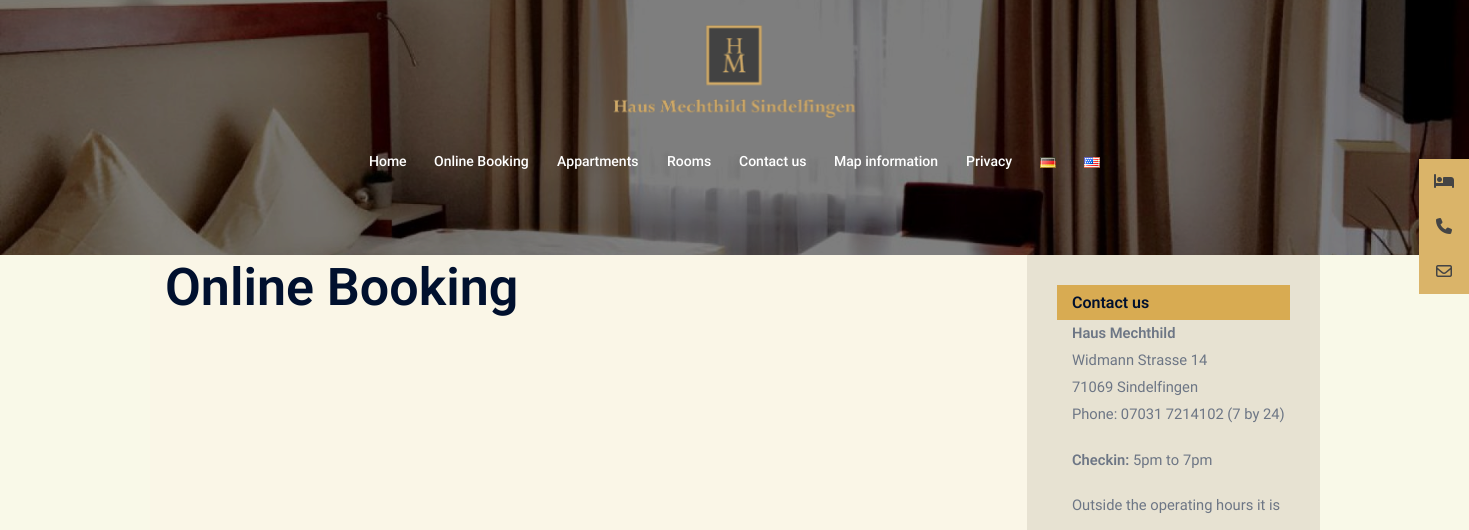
import math
import cairo



def draw_image(context, path, x, y, w, h):
    context.save()
    context.set_source_surface(cairo.ImageSurface.create_from_png(path), x, y)
    context.rectangle(x, y, w, h)
    context.fill()
    context.restore()


def draw(context):
    context.set_source_rgb(249 / 255, 249 / 255, 232 / 255)
    context.paint()
    draw_image(context, "images/1.png", 0, 0, 1469, 255)
    draw_image(context, "images/2.png", 613, 25, 243, 93)
    draw_image(context, "images/3.png", 1040, 157, 16, 11)
    draw_image(context, "images/4.png", 1084, 157, 16, 11)
    context.set_source_rgb(250 / 255, 246 / 255, 231 / 255)
    context.rectangle(150, 255, 877, 275)
    context.fill()
    context.set_source_rgb(231 / 255, 226 / 255, 210 / 255)
    context.rectangle(1027, 255, 293, 275)
    context.fill()
    context.set_source_rgb(216 / 255, 171 / 255, 82 / 255)
    context.rectangle(1057, 285, 233, 35)
    context.fill()
    context.set_source_rgb(218 / 255, 180 / 255, 105 / 255)
    context.rectangle(1419, 159, 50, 135)
    context.fill()
    draw_image(context, "images/5.png", 1434, 174, 20, 14)
    draw_image(context, "images/6.png", 1436, 218, 16, 16)
    draw_image(context, "images/7.png", 1436, 265, 16, 12)
    context.select_font_face("Roboto Medium")
    context.set_font_size(14)
    context.set_source_rgb(1, 1, 1)
    context.move_to(369, 166)
    context.show_text("Home")
    context.move_to(434, 166)
    context.show_text("Online Booking")
    context.move_to(557, 166)
    context.show_text("Appartments")
    context.move_to(667, 166)
    context.show_text("Rooms")
    context.move_to(739, 166)
    context.show_text("Contact us")
    context.move_to(834, 166)
    context.show_text("Map information")
    context.move_to(966, 166)
    context.show_text("Privacy")
    context.select_font_face("Roboto SemiBold")
    context.set_font_size(52)
    context.set_source_rgb(0, 16 / 255, 46 / 255)
    context.move_to(165, 305)
    context.show_text("Online Booking")
    context.set_font_size(16)
    context.move_to(1072, 308)
    context.show_text("Contact us")
    context.set_font_size(14.7)
    context.set_source_rgb(109 / 255, 118 / 255, 133 / 255)
    context.move_to(1072, 338)
    context.show_text("Haus Mechthild")
    context.select_font_face("Roboto")
    context.move_to(1072, 365)
    context.show_text("Widmann Strasse 14")
    context.move_to(1072, 392)
    context.show_text("71069 Sindelfingen")
    context.move_to(1072, 419)
    context.show_text("Phone: 07031 7214102 (7 by 24)")
    context.select_font_face("Roboto SemiBold")
    context.move_to(1072, 465)
    context.show_text("Checkin:")
    context.select_font_face("Roboto")
    context.move_to(1133, 465)
    context.show_text("5pm to 7pm")
    context.move_to(1072, 510)
    context.show_text("Outside the operating hours it is")


surface = cairo.ImageSurface(cairo.Format.RGB24, 1469, 530)
context = cairo.Context(surface)
options = cairo.FontOptions()
options.set_hint_metrics(cairo.HintMetrics.OFF)
options.set_hint_style(cairo.HintStyle.NONE)
context.set_font_options(options)
context.set_miter_limit(4)
draw(context)
surface.write_to_png("out.png")
